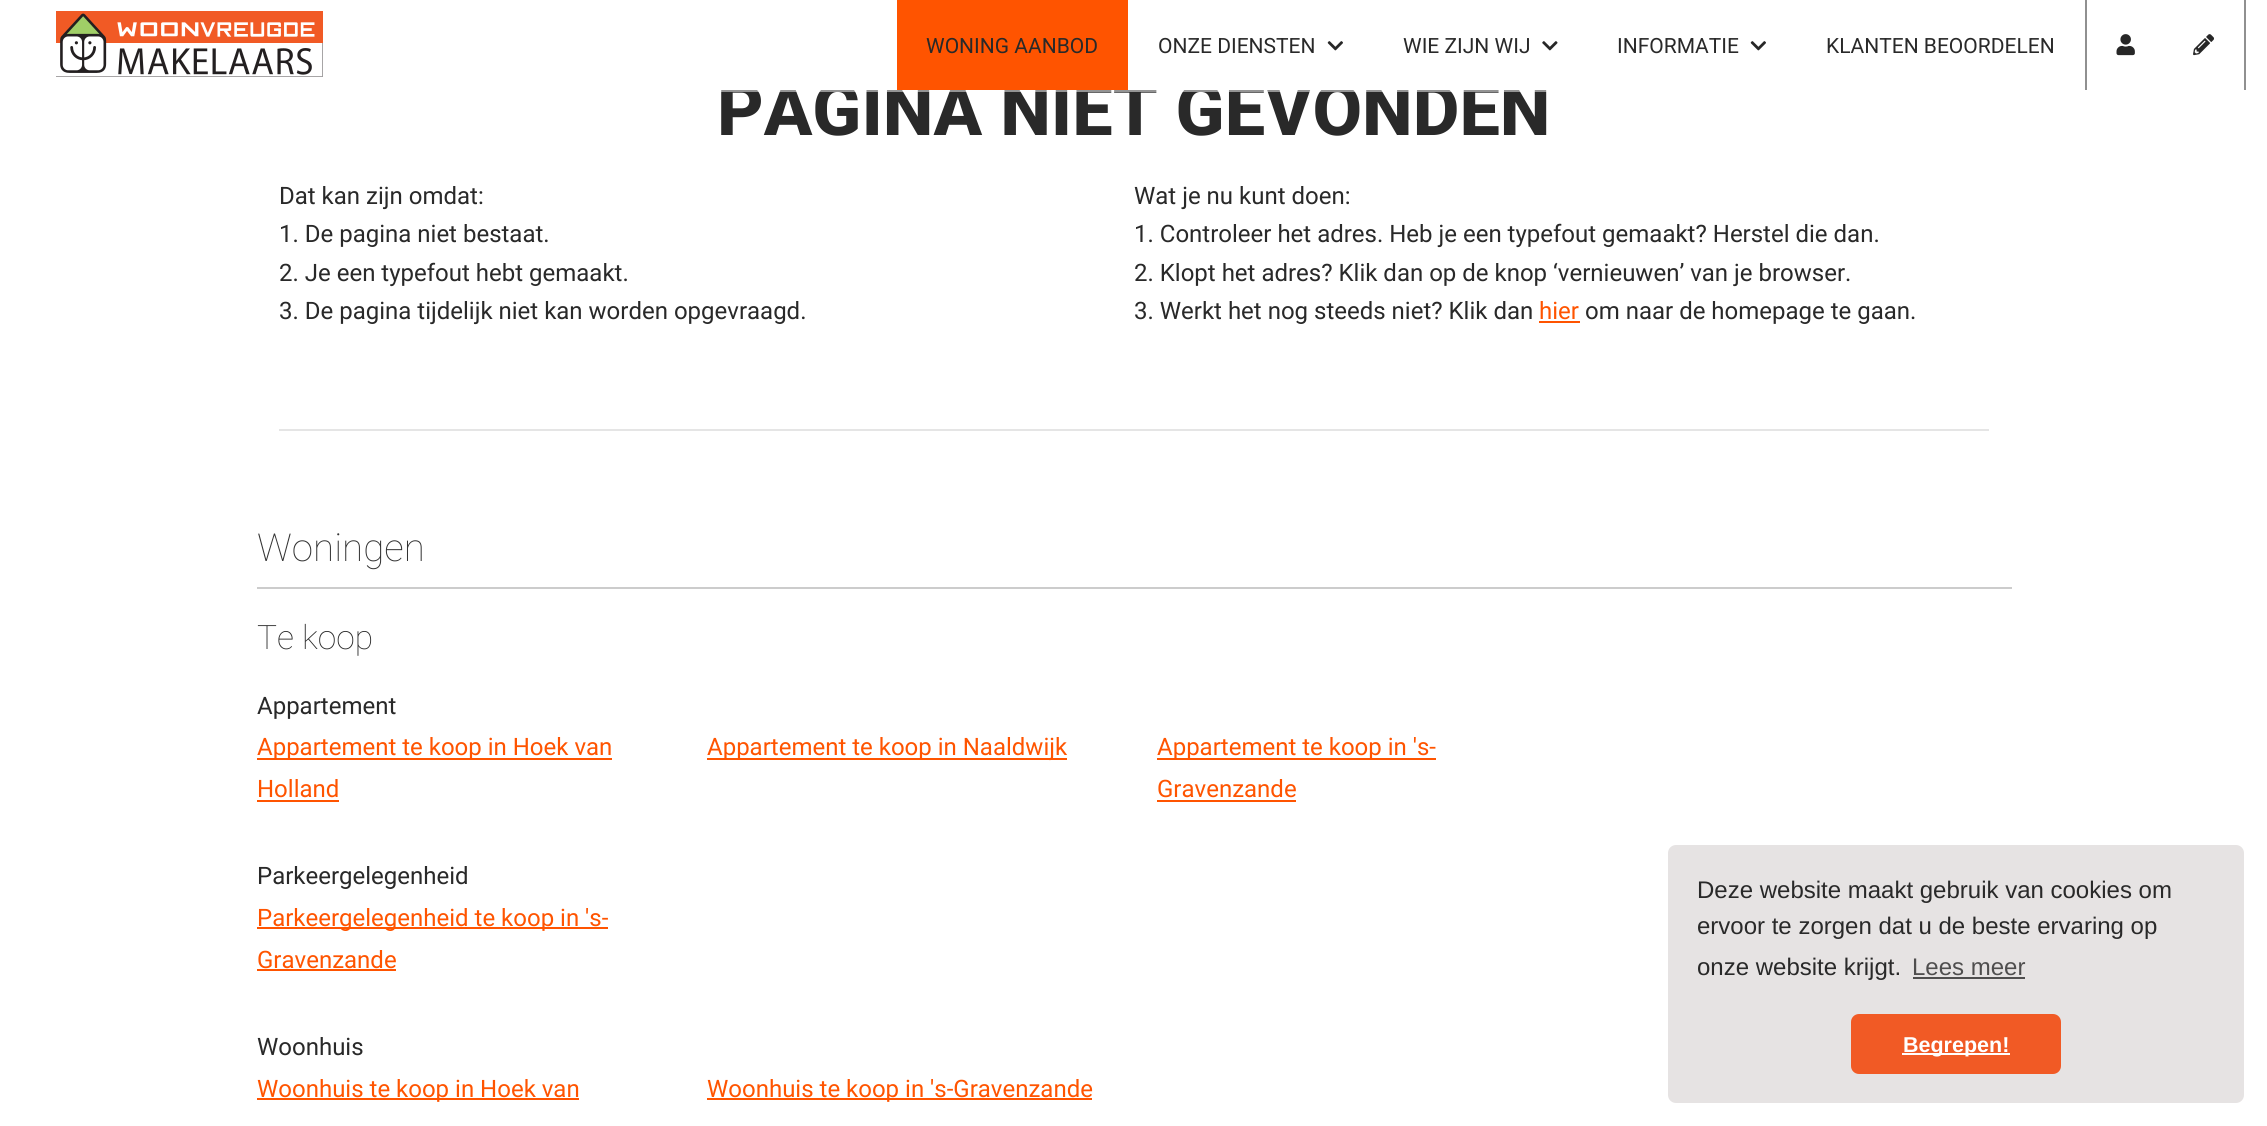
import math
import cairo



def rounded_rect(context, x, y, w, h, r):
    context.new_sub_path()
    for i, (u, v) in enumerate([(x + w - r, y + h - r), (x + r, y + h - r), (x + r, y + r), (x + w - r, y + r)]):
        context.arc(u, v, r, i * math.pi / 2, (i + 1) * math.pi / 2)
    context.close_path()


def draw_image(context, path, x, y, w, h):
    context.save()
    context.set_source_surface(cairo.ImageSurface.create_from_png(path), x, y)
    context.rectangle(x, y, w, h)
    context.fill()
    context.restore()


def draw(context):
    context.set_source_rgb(1, 1, 1)
    context.paint()
    draw_image(context, "images/1.png", 56, 11, 267, 66)
    context.set_source_rgb(144 / 255, 144 / 255, 144 / 255)
    context.rectangle(2085, 0, 2, 90)
    context.fill()
    draw_image(context, "images/2.png", 1327, 41, 16, 10)
    draw_image(context, "images/3.png", 1542, 41, 16, 10)
    draw_image(context, "images/2.png", 1750, 41, 16, 10)
    context.rectangle(2244, 0, 2, 90)
    context.fill()
    draw_image(context, "images/4.png", 2116, 34, 19, 22)
    draw_image(context, "images/5.png", 2193, 34, 21, 22)
    context.set_source_rgb(229 / 255, 229 / 255, 229 / 255)
    context.rectangle(279, 429, 1710, 2)
    context.fill()
    context.set_source_rgb(1, 84 / 255, 0)
    context.rectangle(1539, 321, 41, 2)
    context.fill()
    context.set_source_rgb(204 / 255, 204 / 255, 204 / 255)
    context.rectangle(257, 587, 1755, 2)
    context.fill()
    context.set_source_rgb(1, 84 / 255, 0)
    context.rectangle(257, 758, 355, 2)
    context.fill()
    context.rectangle(257, 800, 82, 2)
    context.fill()
    context.rectangle(707, 758, 360, 2)
    context.fill()
    context.rectangle(1157, 758, 279, 2)
    context.fill()
    context.rectangle(1157, 800, 139, 2)
    context.fill()
    context.rectangle(257, 927, 351, 2)
    context.fill()
    context.rectangle(257, 969, 139, 2)
    context.fill()
    context.rectangle(257, 1098, 322, 2)
    context.fill()
    context.rectangle(707, 1098, 385, 2)
    context.fill()
    context.set_source_rgb(230 / 255, 227 / 255, 227 / 255)
    rounded_rect(context, 1668, 845, 576, 258, 8)
    context.fill()
    context.set_source_rgb(79 / 255, 78 / 255, 78 / 255)
    context.rectangle(1913, 977, 112, 2)
    context.fill()
    context.set_source_rgb(241 / 255, 90 / 255, 37 / 255)
    rounded_rect(context, 1851, 1014, 210, 60, 8)
    context.fill()
    context.set_source_rgb(1, 1, 1)
    context.rectangle(1902, 1053, 108, 2)
    context.fill()
    context.select_font_face("Roboto")
    context.set_font_size(21)
    context.set_source_rgb(41 / 255, 41 / 255, 41 / 255)
    context.move_to(1158, 53)
    context.show_text("ONZE DIENSTEN")
    context.move_to(1403, 53)
    context.show_text("WIE ZIJN WIJ")
    context.move_to(1617, 53)
    context.show_text("INFORMATIE")
    context.move_to(1826, 53)
    context.show_text("KLANTEN BEOORDELEN")
    context.select_font_face("Roboto ExtraBold")
    context.set_font_size(72)
    context.move_to(717, 135)
    context.show_text("PAGINA NIET GEVONDEN")
    context.set_source_rgb(1, 1, 1)
    context.rectangle(721, 83, 826, 7)
    context.fill()
    context.set_source_rgb(1, 84 / 255, 0)
    context.rectangle(897, 0, 231, 90)
    context.fill()
    context.select_font_face("Roboto")
    context.set_font_size(21)
    context.set_source_rgb(41 / 255, 41 / 255, 41 / 255)
    context.move_to(926, 53)
    context.show_text("WONING AANBOD")
    context.set_source_rgba(1, 1, 1, 0.5)
    context.rectangle(721, 90, 826, 2)
    context.fill()
    context.set_font_size(24)
    context.set_source_rgb(41 / 255, 41 / 255, 41 / 255)
    context.move_to(279, 204)
    context.show_text("Dat kan zijn omdat:")
    context.move_to(279, 242)
    context.show_text("1. De pagina niet bestaat.")
    context.move_to(279, 281)
    context.show_text("2. Je een typefout hebt gemaakt.")
    context.move_to(279, 319)
    context.show_text("3. De pagina tijdelijk niet kan worden opgevraagd.")
    context.move_to(1134, 204)
    context.show_text("Wat je nu kunt doen:")
    context.move_to(1134, 242)
    context.show_text("1. Controleer het adres. Heb je een typefout gemaakt? Herstel die dan.")
    context.move_to(1134, 281)
    context.show_text("2. Klopt het adres? Klik dan op de knop ‘vernieuwen’ van je browser.")
    context.move_to(1134, 319)
    context.show_text("3. Werkt het nog steeds niet? Klik dan")
    context.set_source_rgb(1, 84 / 255, 0)
    context.move_to(1539, 319)
    context.show_text("hier")
    context.set_source_rgb(41 / 255, 41 / 255, 41 / 255)
    context.move_to(1585, 319)
    context.show_text("om naar de homepage te gaan.")
    context.select_font_face("Roboto Thin")
    context.set_font_size(38.5)
    context.set_source_rgb(51 / 255, 51 / 255, 51 / 255)
    context.move_to(257, 561)
    context.show_text("Woningen")
    context.set_font_size(33.5)
    context.set_source_rgb(41 / 255, 41 / 255, 41 / 255)
    context.move_to(257, 649)
    context.show_text("Te koop")
    context.select_font_face("Roboto")
    context.set_font_size(24)
    context.move_to(257, 714)
    context.show_text("Appartement")
    context.set_source_rgb(1, 84 / 255, 0)
    context.move_to(257, 755)
    context.show_text("Appartement te koop in Hoek van")
    context.move_to(257, 797)
    context.show_text("Holland")
    context.move_to(707, 755)
    context.show_text("Appartement te koop in Naaldwijk")
    context.move_to(1157, 755)
    context.show_text("Appartement te koop in 's-")
    context.move_to(1157, 797)
    context.show_text("Gravenzande")
    context.set_source_rgb(41 / 255, 41 / 255, 41 / 255)
    context.move_to(257, 884)
    context.show_text("Parkeergelegenheid")
    context.set_source_rgb(1, 84 / 255, 0)
    context.move_to(257, 926)
    context.show_text("Parkeergelegenheid te koop in 's-")
    context.move_to(257, 968)
    context.show_text("Gravenzande")
    context.set_source_rgb(41 / 255, 41 / 255, 41 / 255)
    context.move_to(257, 1055)
    context.show_text("Woonhuis")
    context.set_source_rgb(1, 84 / 255, 0)
    context.move_to(257, 1097)
    context.show_text("Woonhuis te koop in Hoek van")
    context.move_to(707, 1097)
    context.show_text("Woonhuis te koop in 's-Gravenzande")
    context.select_font_face("Liberation Sans")
    context.set_source_rgb(41 / 255, 41 / 255, 41 / 255)
    context.move_to(1697, 898)
    context.show_text("Deze website maakt gebruik van cookies om")
    context.move_to(1697, 934)
    context.show_text("ervoor te zorgen dat u de beste ervaring op")
    context.move_to(1697, 975)
    context.show_text("onze website krijgt.")
    context.set_source_rgb(79 / 255, 78 / 255, 78 / 255)
    context.move_to(1912, 975)
    context.show_text("Lees meer")
    context.select_font_face("Liberation Sans", cairo.FontSlant.NORMAL, cairo.FontWeight.BOLD)
    context.set_font_size(21.5)
    context.set_source_rgb(1, 1, 1)
    context.move_to(1903, 1052)
    context.show_text("Begrepen!")


surface = cairo.ImageSurface(cairo.Format.RGB24, 2267, 1126)
context = cairo.Context(surface)
options = cairo.FontOptions()
options.set_hint_metrics(cairo.HintMetrics.OFF)
options.set_hint_style(cairo.HintStyle.NONE)
context.set_font_options(options)
context.set_miter_limit(4)
draw(context)
surface.write_to_png("out.png")
